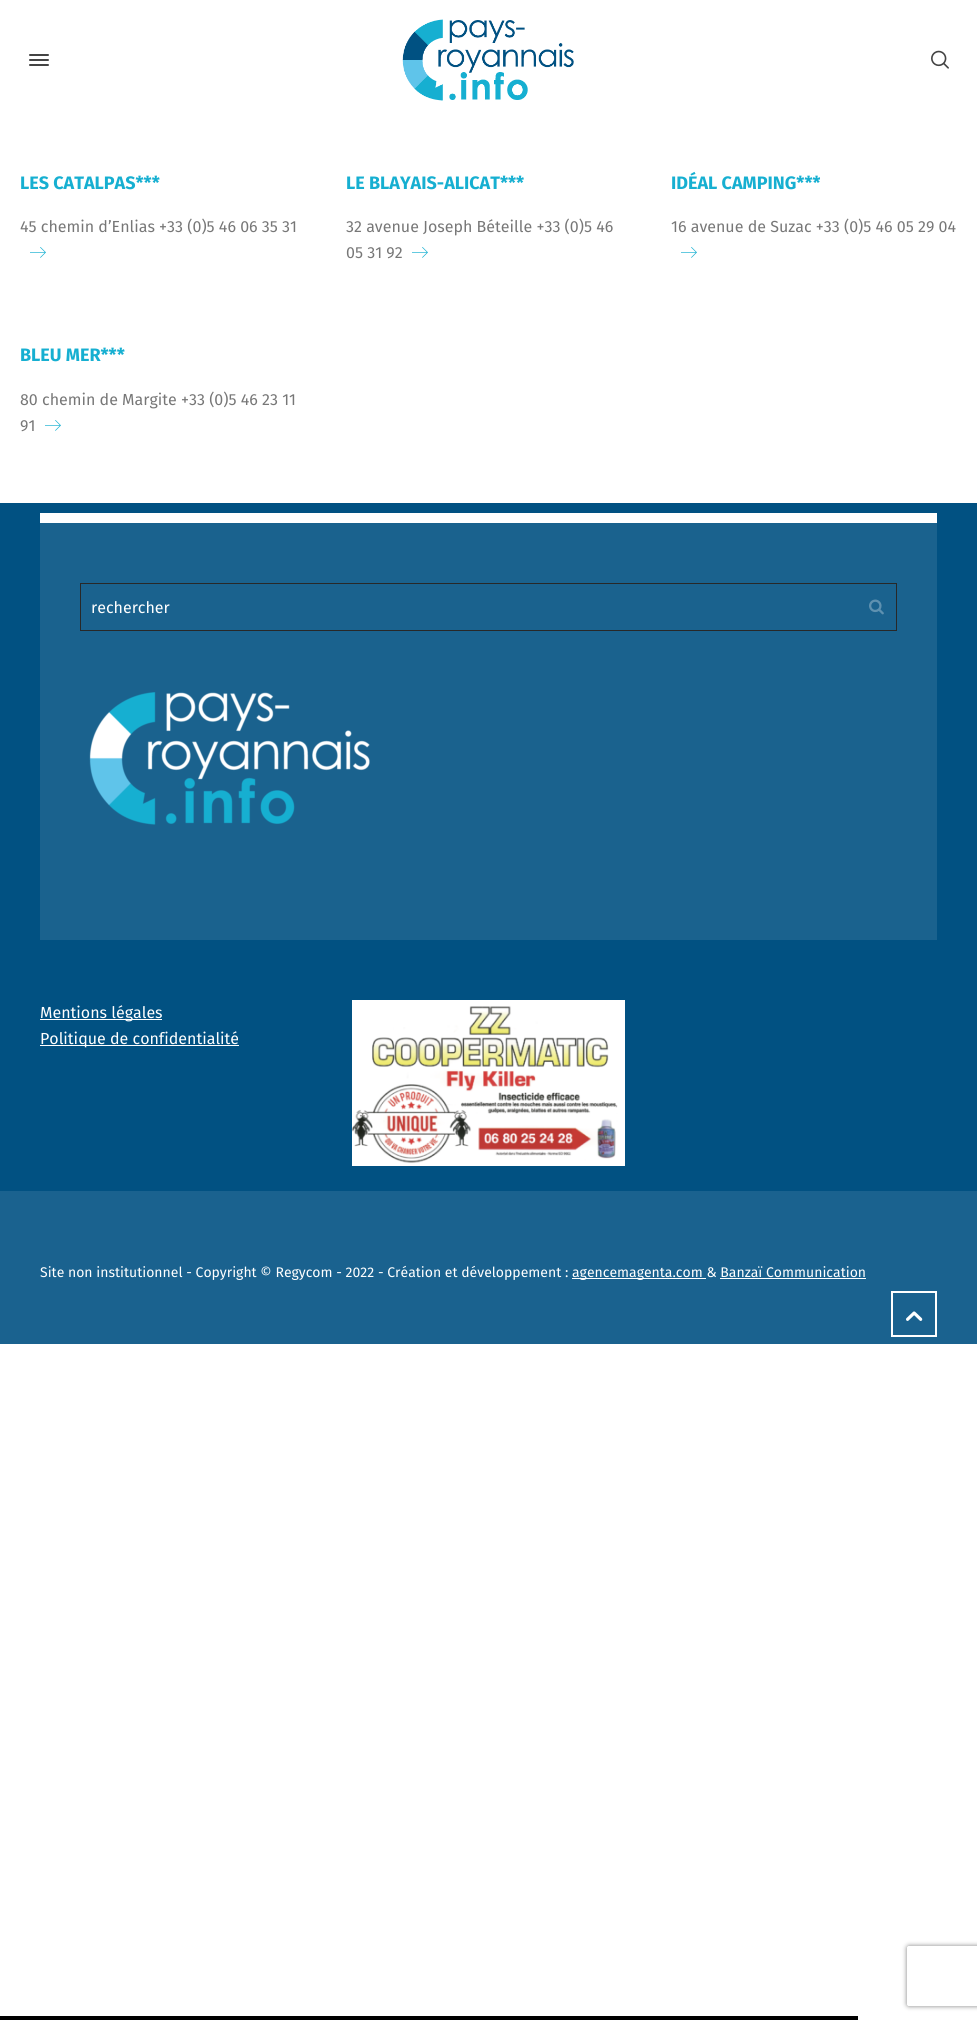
import math
import cairo



def rounded_rect(context, x, y, w, h, r):
    context.new_sub_path()
    for i, (u, v) in enumerate([(x + w - r, y + h - r), (x + r, y + h - r), (x + r, y + r), (x + w - r, y + r)]):
        context.arc(u, v, r, i * math.pi / 2, (i + 1) * math.pi / 2)
    context.close_path()


def draw_shadow(context, x, y, w, h, r, blur, alpha):
    context.push_group_with_content(cairo.Content.ALPHA)
    context.set_operator(cairo.Operator.SOURCE)
    for i in range(15, -16, -2):
        e = blur * i / 6
        if min(w, h) + 2 * e > 0:
            context.set_source_rgba(0, 0, 0, alpha * math.erfc((i - 1) / 8.5) / 2)
            rounded_rect(context, x - e, y - e, w + 2 * e, h + 2 * e, max(0, min(r + e + blur * .6, min(w, h) / 2 + e)))
            context.fill()
    context.mask(context.pop_group())


def draw_image(context, path, x, y, w, h):
    context.save()
    context.set_source_surface(cairo.ImageSurface.create_from_png(path), x, y)
    context.rectangle(x, y, w, h)
    context.fill()
    context.restore()


def draw(context):
    context.set_source_rgb(1, 1, 1)
    context.paint()
    context.set_source_rgb(68 / 255, 68 / 255, 68 / 255)
    rounded_rect(context, 29, 54, 20, 2, 1)
    context.fill()
    rounded_rect(context, 29, 59, 20, 2, 1)
    context.fill()
    rounded_rect(context, 29, 64, 20, 2, 1)
    context.fill()
    draw_image(context, "images/1.png", 402, 19, 172, 82)
    draw_image(context, "images/2.png", 931, 50, 18, 19)
    draw_image(context, "images/3.png", 30, 247, 16, 11)
    draw_image(context, "images/3.png", 412, 247, 16, 11)
    draw_image(context, "images/3.png", 681, 247, 16, 11)
    draw_image(context, "images/3.png", 45, 420, 16, 11)
    context.set_source_rgb(1 / 255, 81 / 255, 130 / 255)
    context.rectangle(0, 503, 977, 688)
    context.fill()
    context.set_source_rgb(26 / 255, 98 / 255, 142 / 255)
    context.rectangle(40, 523, 897, 417)
    context.fill()
    context.set_source_rgb(1, 1, 1)
    context.rectangle(40, 513, 897, 10)
    context.fill()
    context.rectangle(80.5, 583.5, 816, 47)
    context.set_source_rgb(40 / 255, 40 / 255, 40 / 255)
    context.set_line_width(1)
    context.stroke()
    draw_image(context, "images/4.png", 869, 599, 15, 16)
    draw_image(context, "images/5.png", 89, 692, 281, 133)
    context.set_source_rgb(1, 1, 1)
    context.rectangle(40, 1019, 122, 1)
    context.fill()
    context.rectangle(40, 1045, 199, 1)
    context.fill()
    draw_image(context, "images/6.png", 352, 1000, 273, 166)
    context.set_source_rgb(26 / 255, 98 / 255, 143 / 255)
    context.rectangle(0, 1191, 977, 153)
    context.fill()
    context.set_source_rgb(1, 1, 1)
    context.rectangle(572, 1278, 134, 1)
    context.fill()
    context.rectangle(720, 1278, 146, 1)
    context.fill()
    context.rectangle(892, 1292, 44, 44)
    context.set_line_width(2)
    context.stroke()
    draw_image(context, "images/7.png", 906, 1311, 17, 10)
    context.save()
    context.set_fill_rule(cairo.FillRule.EVEN_ODD)
    context.new_path()
    context.move_to(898, 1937)
    context.line_to(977, 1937)
    context.line_to(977, 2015)
    context.line_to(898, 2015)
    context.close_path()
    context.move_to(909, 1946)
    context.line_to(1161, 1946)
    context.curve_to(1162, 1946, 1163, 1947, 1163, 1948)
    context.line_to(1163, 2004)
    context.curve_to(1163, 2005, 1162, 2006, 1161, 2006)
    context.line_to(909, 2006)
    context.curve_to(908, 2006, 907, 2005, 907, 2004)
    context.line_to(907, 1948)
    context.curve_to(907, 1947, 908, 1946, 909, 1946)
    context.close_path()
    context.clip()
    context.set_source_rgb(128 / 255, 128 / 255, 128 / 255)
    draw_shadow(context, 907, 1946, 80, 60, 2, 2.5, 1)
    context.restore()
    context.set_source_rgb(0, 0, 0)
    context.rectangle(0, 2016, 858, 4)
    context.fill()
    context.select_font_face("Fira Sans", cairo.FontSlant.NORMAL, cairo.FontWeight.BOLD)
    context.set_font_size(18)
    context.set_source_rgb(22 / 255, 175 / 255, 209 / 255)
    context.move_to(20, 189)
    context.show_text("LES CATALPAS***")
    context.select_font_face("Fira Sans")
    context.set_font_size(16)
    context.set_source_rgb(119 / 255, 119 / 255, 119 / 255)
    context.move_to(20, 232)
    context.show_text("45 chemin d’Enlias +33 (0)5 46 06 35 31")
    context.select_font_face("Fira Sans", cairo.FontSlant.NORMAL, cairo.FontWeight.BOLD)
    context.set_font_size(18)
    context.set_source_rgb(22 / 255, 175 / 255, 209 / 255)
    context.move_to(346, 189)
    context.show_text("LE BLAYAIS-ALICAT***")
    context.select_font_face("Fira Sans")
    context.set_font_size(16)
    context.set_source_rgb(119 / 255, 119 / 255, 119 / 255)
    context.move_to(346, 232)
    context.show_text("32 avenue Joseph Béteille +33 (0)5 46")
    context.move_to(346, 258)
    context.show_text("05 31 92")
    context.select_font_face("Fira Sans", cairo.FontSlant.NORMAL, cairo.FontWeight.BOLD)
    context.set_font_size(18)
    context.set_source_rgb(22 / 255, 175 / 255, 209 / 255)
    context.move_to(671, 189)
    context.show_text("IDÉAL CAMPING***")
    context.select_font_face("Fira Sans")
    context.set_font_size(16)
    context.set_source_rgb(119 / 255, 119 / 255, 119 / 255)
    context.move_to(671, 232)
    context.show_text("16 avenue de Suzac +33 (0)5 46 05 29 04")
    context.select_font_face("Fira Sans", cairo.FontSlant.NORMAL, cairo.FontWeight.BOLD)
    context.set_font_size(18)
    context.set_source_rgb(22 / 255, 175 / 255, 209 / 255)
    context.move_to(20, 361)
    context.show_text("BLEU MER***")
    context.select_font_face("Fira Sans")
    context.set_font_size(16)
    context.set_source_rgb(119 / 255, 119 / 255, 119 / 255)
    context.move_to(20, 405)
    context.show_text("80 chemin de Margite +33 (0)5 46 23 11")
    context.move_to(20, 431)
    context.show_text("91")
    context.set_source_rgb(1, 1, 1)
    context.move_to(91, 613)
    context.show_text("rechercher")
    context.move_to(40, 1018)
    context.show_text("Mentions légales")
    context.move_to(40, 1044)
    context.show_text("Politique de confidentialité")
    context.set_font_size(14)
    context.move_to(40, 1277)
    context.show_text("Site non institutionnel - Copyright © Regycom - 2022 - Création et développement :")
    context.move_to(572, 1277)
    context.show_text("agencemagenta.com & Banzaï Communication")


surface = cairo.ImageSurface(cairo.Format.RGB24, 977, 2020)
context = cairo.Context(surface)
options = cairo.FontOptions()
options.set_hint_metrics(cairo.HintMetrics.OFF)
options.set_hint_style(cairo.HintStyle.NONE)
context.set_font_options(options)
context.set_miter_limit(4)
draw(context)
surface.write_to_png("out.png")
